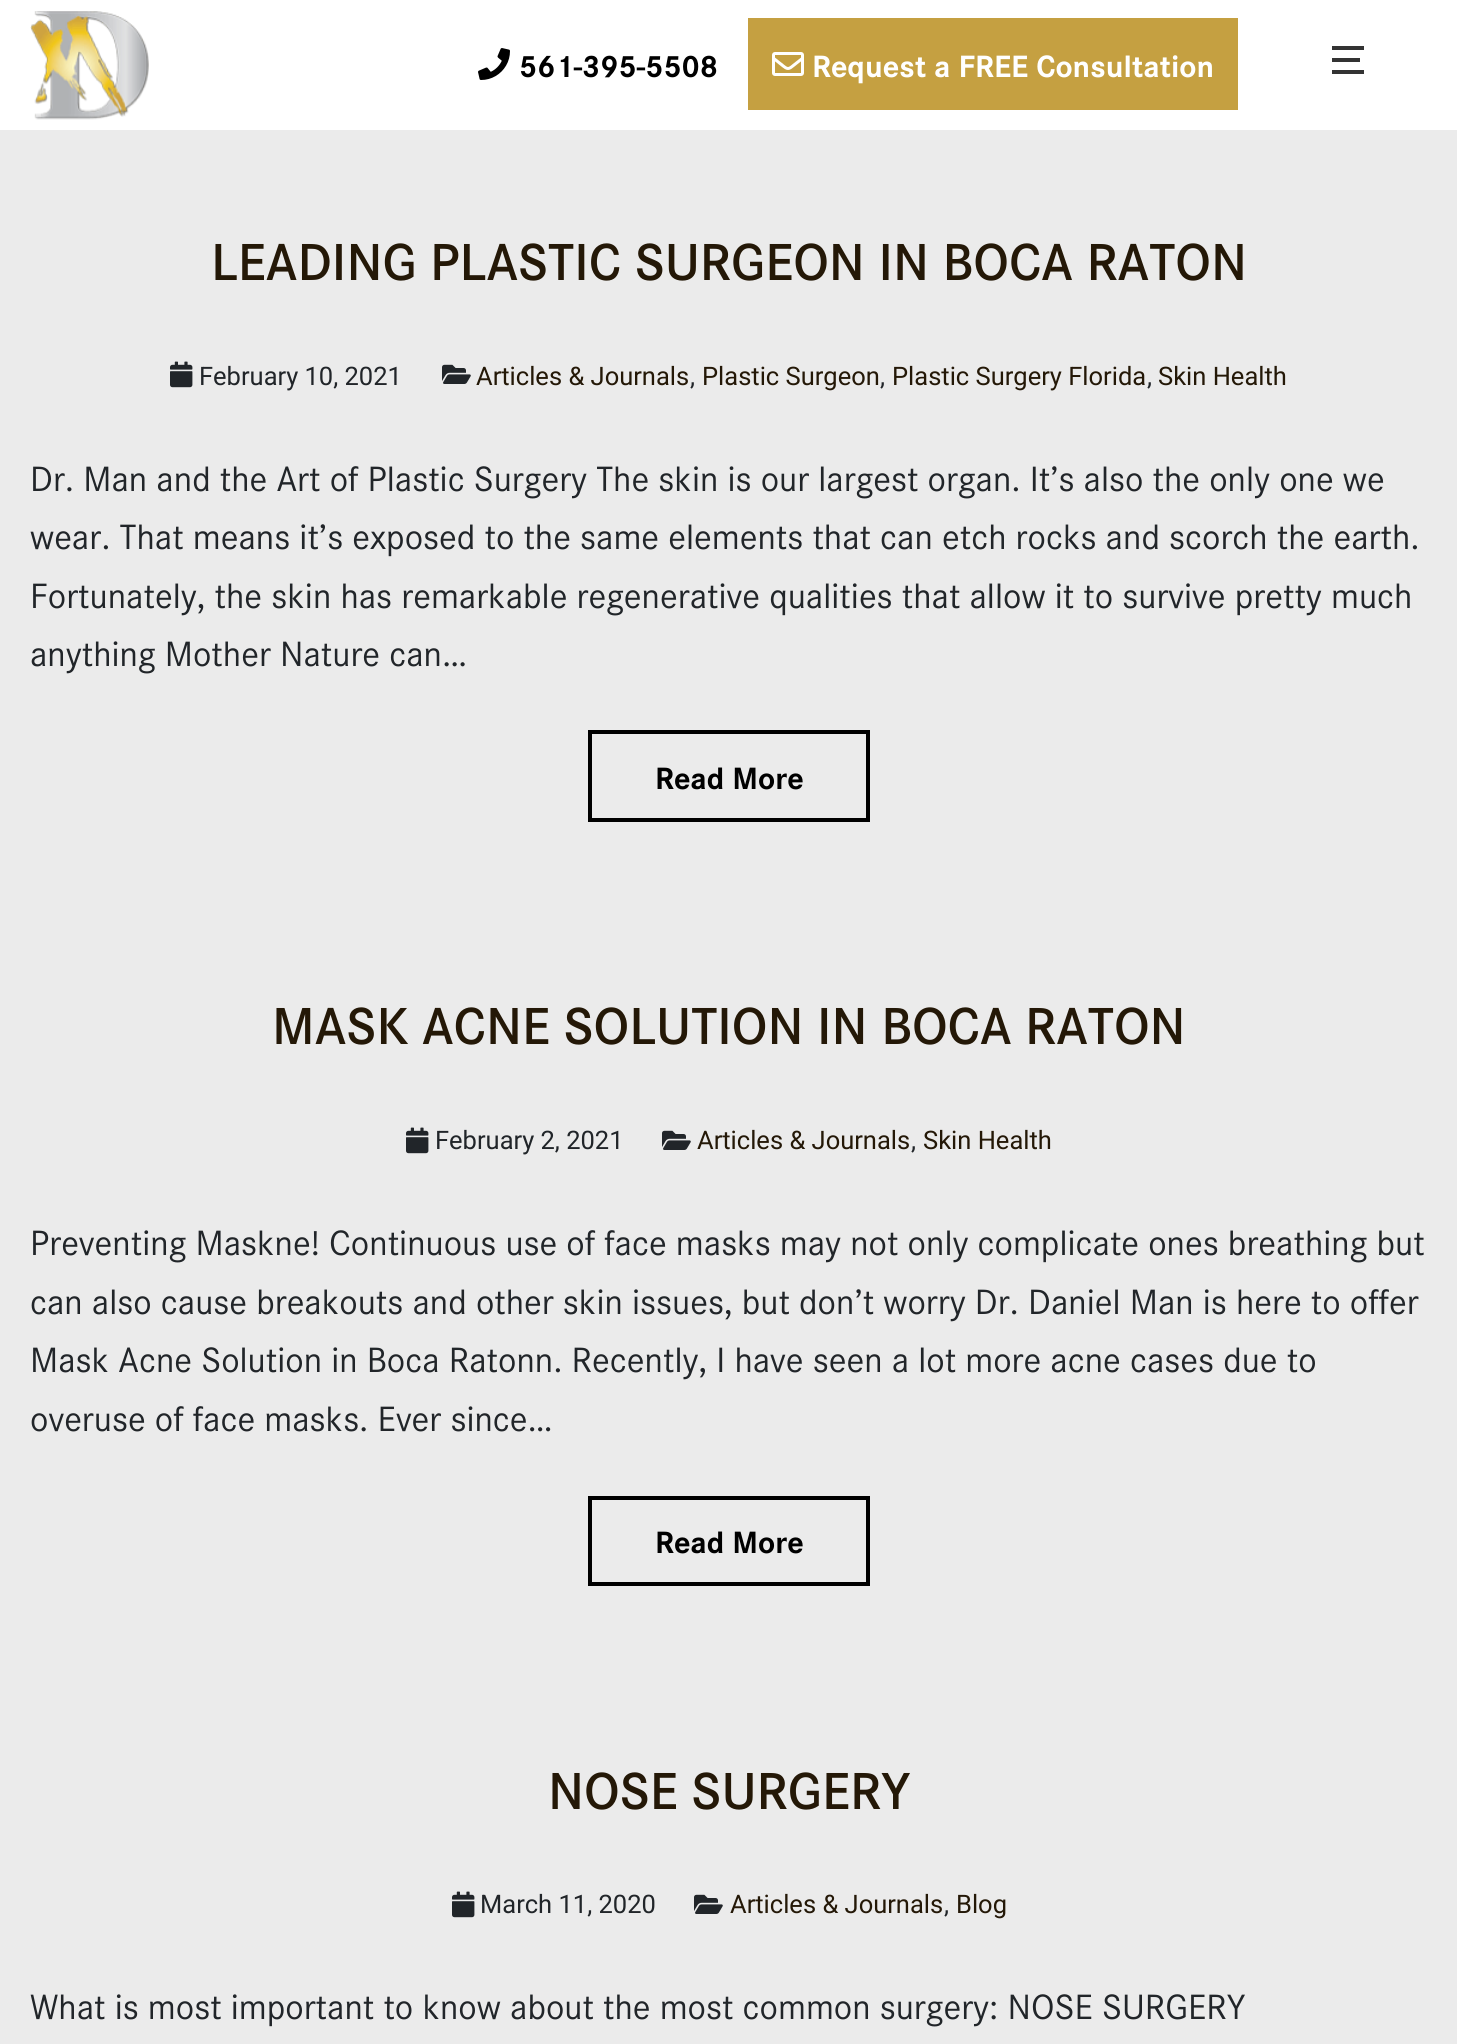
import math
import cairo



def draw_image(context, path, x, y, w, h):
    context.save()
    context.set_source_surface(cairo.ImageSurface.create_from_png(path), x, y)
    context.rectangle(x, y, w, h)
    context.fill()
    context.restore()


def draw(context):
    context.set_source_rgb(235 / 255, 235 / 255, 235 / 255)
    context.paint()
    context.set_source_rgb(1, 1, 1)
    context.rectangle(0, 0, 1457, 130)
    context.fill()
    draw_image(context, "images/1.png", 30, 11, 119, 109)
    draw_image(context, "images/2.png", 478, 48, 32, 32)
    context.set_source_rgb(197 / 255, 160 / 255, 65 / 255)
    context.rectangle(748, 18, 490, 92)
    context.fill()
    draw_image(context, "images/3.png", 772, 52, 32, 24)
    context.set_source_rgb(51 / 255, 51 / 255, 51 / 255)
    context.rectangle(1332, 46, 32, 4)
    context.fill()
    context.rectangle(1332, 58, 28, 4)
    context.fill()
    context.rectangle(1332, 70, 32, 4)
    context.fill()
    draw_image(context, "images/4.png", 170, 361, 23, 27)
    draw_image(context, "images/5.png", 442, 364, 29, 20)
    context.rectangle(590, 732, 278, 88)
    context.set_source_rgb(0, 0, 0)
    context.set_line_width(4)
    context.stroke()
    draw_image(context, "images/4.png", 406, 1127, 23, 27)
    draw_image(context, "images/5.png", 662, 1130, 29, 20)
    context.rectangle(590, 1498, 278, 86)
    context.stroke()
    draw_image(context, "images/4.png", 452, 1891, 23, 27)
    draw_image(context, "images/5.png", 694, 1894, 29, 20)
    context.select_font_face("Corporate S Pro", cairo.FontSlant.NORMAL, cairo.FontWeight.BOLD)
    context.set_font_size(32)
    context.move_to(519, 77)
    context.show_text("561-395-5508")
    context.set_source_rgb(1, 1, 1)
    context.move_to(812, 77)
    context.show_text("Request a FREE Consultation")
    context.select_font_face("Corporate S Pro SemiBold")
    context.set_font_size(54)
    context.set_source_rgb(36 / 255, 24 / 255, 7 / 255)
    context.move_to(211, 280)
    context.show_text("LEADING PLASTIC SURGEON IN BOCA RATON")
    context.select_font_face("Roboto")
    context.set_font_size(25.5)
    context.set_source_rgb(33 / 255, 37 / 255, 41 / 255)
    context.move_to(199, 385)
    context.show_text("February 10, 2021")
    context.set_source_rgb(36 / 255, 24 / 255, 7 / 255)
    context.move_to(476, 385)
    context.show_text("Articles & Journals")
    context.set_source_rgb(33 / 255, 37 / 255, 41 / 255)
    context.move_to(690, 385)
    context.show_text(",")
    context.set_source_rgb(36 / 255, 24 / 255, 7 / 255)
    context.move_to(702, 385)
    context.show_text("Plastic Surgeon")
    context.set_source_rgb(33 / 255, 37 / 255, 41 / 255)
    context.move_to(880, 385)
    context.show_text(",")
    context.set_source_rgb(36 / 255, 24 / 255, 7 / 255)
    context.move_to(892, 385)
    context.show_text("Plastic Surgery Florida")
    context.set_source_rgb(33 / 255, 37 / 255, 41 / 255)
    context.move_to(1147, 385)
    context.show_text(",")
    context.set_source_rgb(36 / 255, 24 / 255, 7 / 255)
    context.move_to(1158, 385)
    context.show_text("Skin Health")
    context.select_font_face("Corporate S Pro")
    context.set_font_size(36.5)
    context.set_source_rgb(33 / 255, 37 / 255, 41 / 255)
    context.move_to(30, 491)
    context.show_text("Dr. Man and the Art of Plastic Surgery The skin is our largest organ. It’s also the only one we")
    context.move_to(30, 549)
    context.show_text("wear. That means it’s exposed to the same elements that can etch rocks and scorch the earth.")
    context.move_to(30, 608)
    context.show_text("Fortunately, the skin has remarkable regenerative qualities that allow it to survive pretty much")
    context.move_to(30, 666)
    context.show_text("anything Mother Nature can…")
    context.select_font_face("Corporate S Pro", cairo.FontSlant.NORMAL, cairo.FontWeight.BOLD)
    context.set_font_size(32)
    context.set_source_rgb(0, 0, 0)
    context.move_to(655, 789)
    context.show_text("Read More")
    context.select_font_face("Corporate S Pro SemiBold")
    context.set_font_size(54)
    context.set_source_rgb(36 / 255, 24 / 255, 7 / 255)
    context.move_to(272, 1044)
    context.show_text("MASK ACNE SOLUTION IN BOCA RATON")
    context.select_font_face("Roboto")
    context.set_font_size(25.5)
    context.set_source_rgb(33 / 255, 37 / 255, 41 / 255)
    context.move_to(435, 1149)
    context.show_text("February 2, 2021")
    context.set_source_rgb(36 / 255, 24 / 255, 7 / 255)
    context.move_to(697, 1149)
    context.show_text("Articles & Journals")
    context.set_source_rgb(33 / 255, 37 / 255, 41 / 255)
    context.move_to(911, 1149)
    context.show_text(",")
    context.set_source_rgb(36 / 255, 24 / 255, 7 / 255)
    context.move_to(923, 1149)
    context.show_text("Skin Health")
    context.select_font_face("Corporate S Pro")
    context.set_font_size(36.5)
    context.set_source_rgb(33 / 255, 37 / 255, 41 / 255)
    context.move_to(30, 1255)
    context.show_text("Preventing Maskne! Continuous use of face masks may not only complicate ones breathing but")
    context.move_to(30, 1314)
    context.show_text("can also cause breakouts and other skin issues, but don’t worry Dr. Daniel Man is here to offer")
    context.move_to(30, 1372)
    context.show_text("Mask Acne Solution in Boca Ratonn. Recently, I have seen a lot more acne cases due to")
    context.move_to(30, 1431)
    context.show_text("overuse of face masks. Ever since…")
    context.select_font_face("Corporate S Pro", cairo.FontSlant.NORMAL, cairo.FontWeight.BOLD)
    context.set_font_size(32)
    context.set_source_rgb(0, 0, 0)
    context.move_to(655, 1553)
    context.show_text("Read More")
    context.select_font_face("Corporate S Pro SemiBold")
    context.set_font_size(54)
    context.set_source_rgb(36 / 255, 24 / 255, 7 / 255)
    context.move_to(548, 1809)
    context.show_text("NOSE SURGERY")
    context.select_font_face("Roboto")
    context.set_font_size(25.5)
    context.set_source_rgb(33 / 255, 37 / 255, 41 / 255)
    context.move_to(480, 1913)
    context.show_text("March 11, 2020")
    context.set_source_rgb(36 / 255, 24 / 255, 7 / 255)
    context.move_to(730, 1913)
    context.show_text("Articles & Journals")
    context.set_source_rgb(33 / 255, 37 / 255, 41 / 255)
    context.move_to(944, 1913)
    context.show_text(",")
    context.set_source_rgb(36 / 255, 24 / 255, 7 / 255)
    context.move_to(956, 1913)
    context.show_text("Blog")
    context.select_font_face("Corporate S Pro")
    context.set_font_size(36.5)
    context.set_source_rgb(33 / 255, 37 / 255, 41 / 255)
    context.move_to(30, 2019)
    context.show_text("What is most important to know about the most common surgery: NOSE SURGERY")


surface = cairo.ImageSurface(cairo.Format.RGB24, 1457, 2044)
context = cairo.Context(surface)
options = cairo.FontOptions()
options.set_hint_metrics(cairo.HintMetrics.OFF)
options.set_hint_style(cairo.HintStyle.NONE)
context.set_font_options(options)
context.set_miter_limit(4)
draw(context)
surface.write_to_png("out.png")
